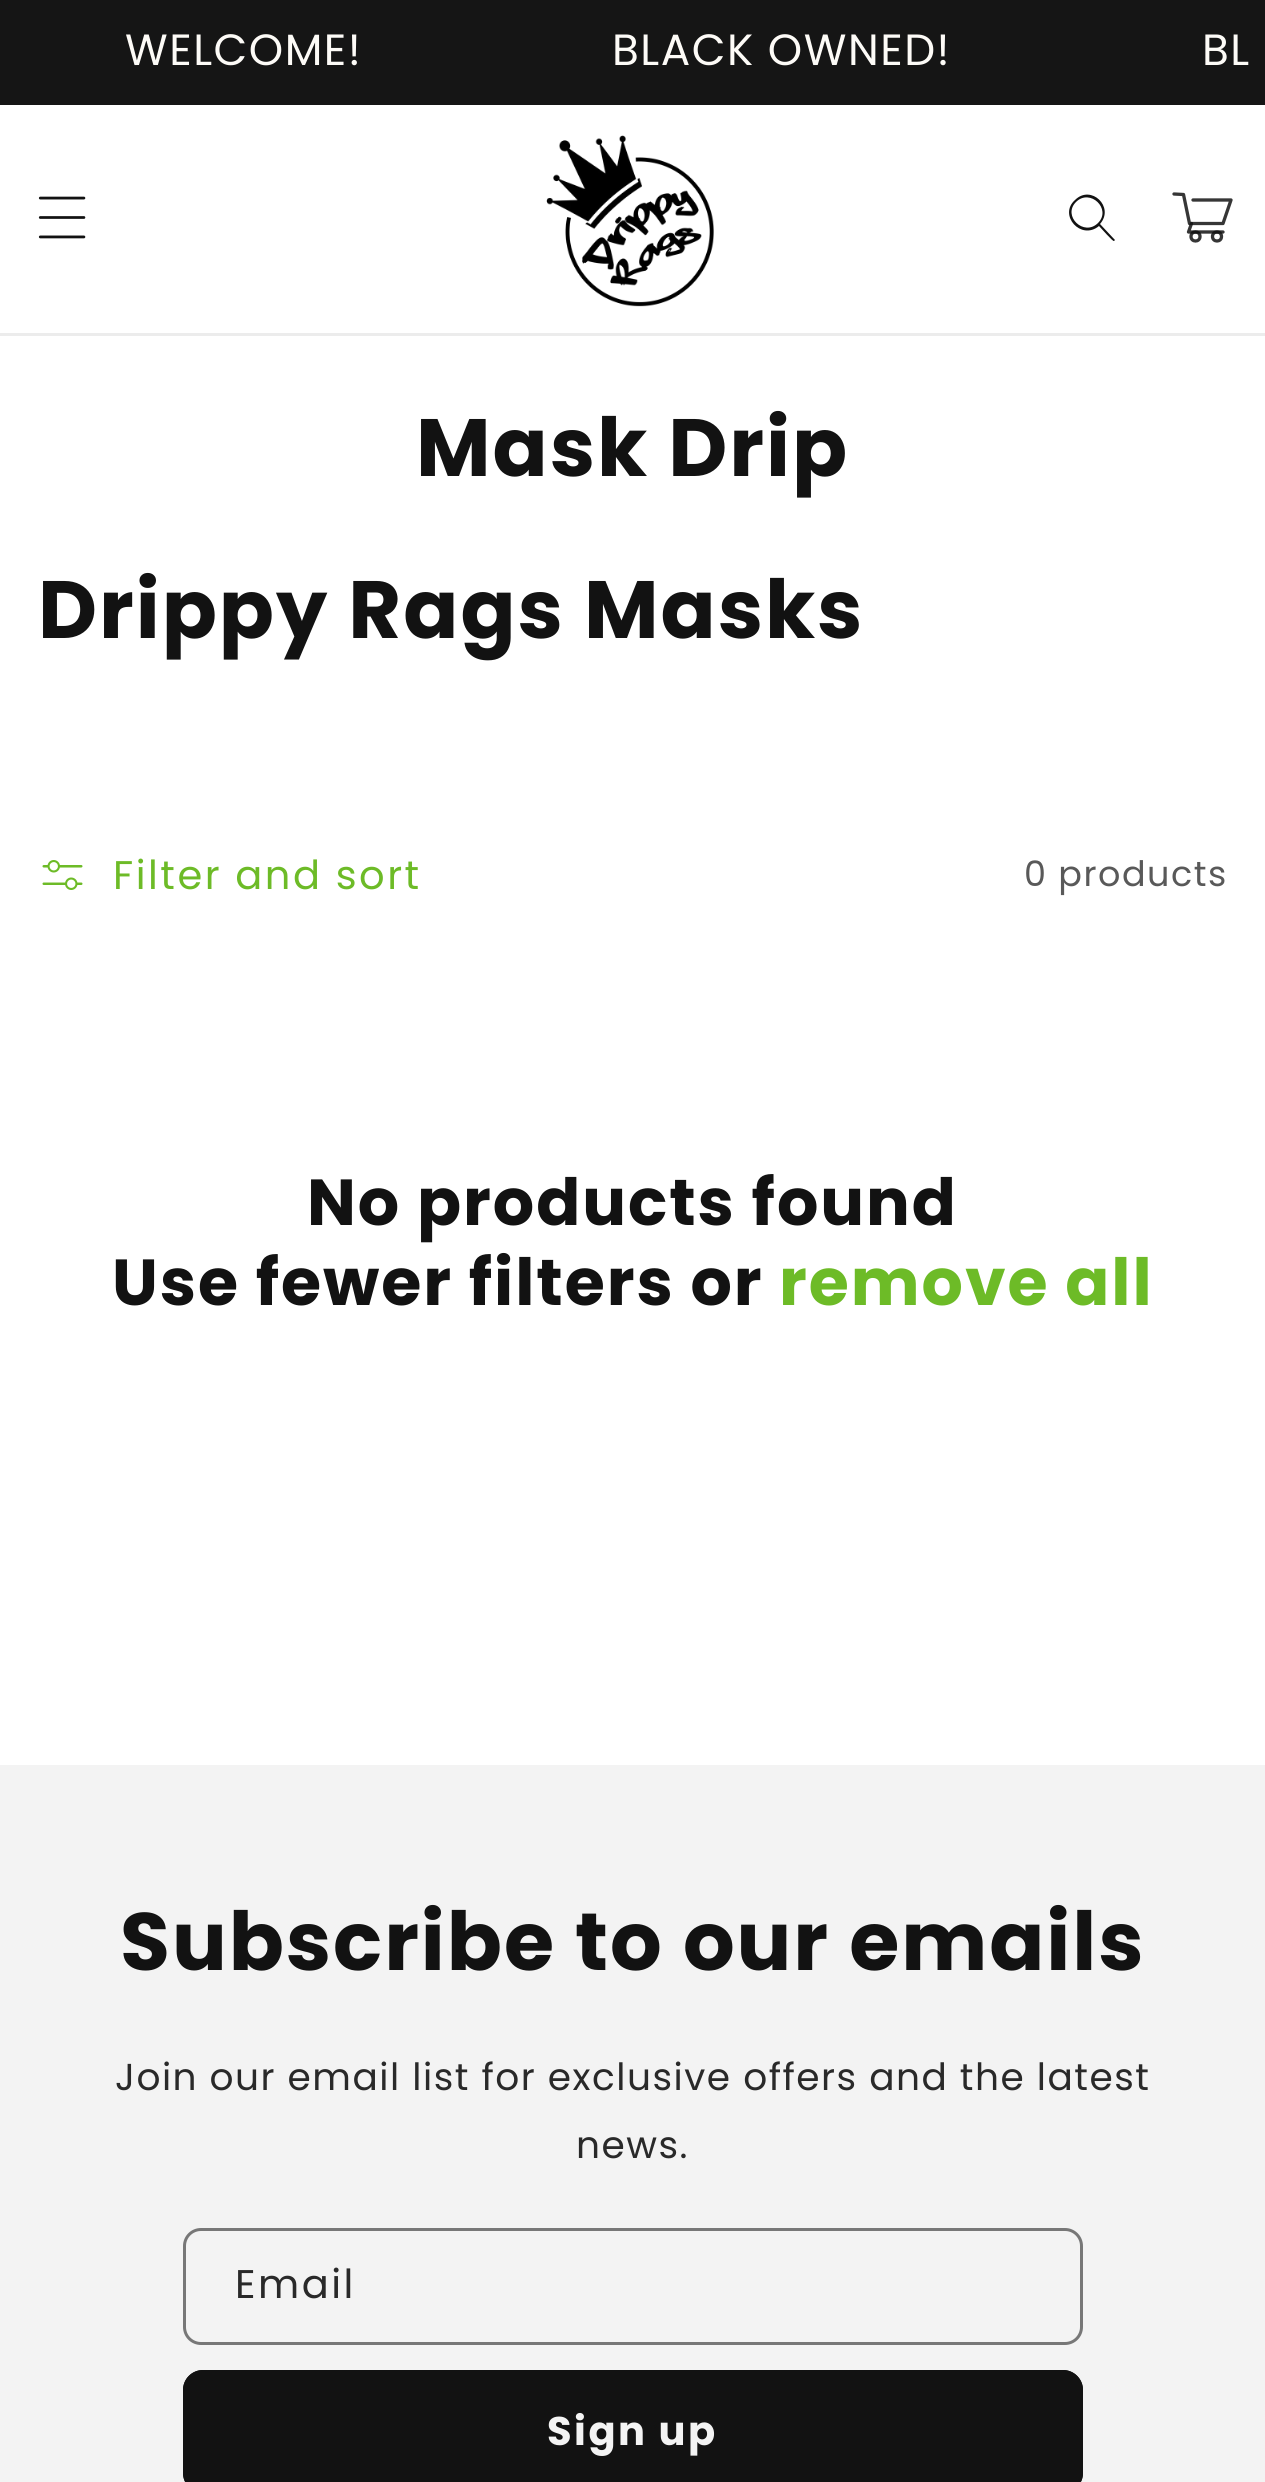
import math
import cairo



def draw_spaced(context, x, y, s, letter, word):
    context.move_to(x, y)
    for ch in s:
        context.show_text(ch)
        context.rel_move_to(letter + word * (ch == ' '), 0)


def rounded_rect(context, x, y, w, h, r):
    context.new_sub_path()
    for i, (u, v) in enumerate([(x + w - r, y + h - r), (x + r, y + h - r), (x + r, y + r), (x + w - r, y + r)]):
        context.arc(u, v, r, i * math.pi / 2, (i + 1) * math.pi / 2)
    context.close_path()


def draw_image(context, path, x, y, w, h):
    context.save()
    context.set_source_surface(cairo.ImageSurface.create_from_png(path), x, y)
    context.rectangle(x, y, w, h)
    context.fill()
    context.restore()


def draw(context):
    context.set_source_rgb(1, 1, 1)
    context.paint()
    context.set_source_rgb(21 / 255, 21 / 255, 21 / 255)
    context.rectangle(0, 0, 1265, 105)
    context.fill()
    context.set_source_rgb(236 / 255, 236 / 255, 236 / 255)
    context.rectangle(0, 333, 1265, 3)
    context.fill()
    draw_image(context, "images/1.png", 38, 196, 48, 43)
    draw_image(context, "images/2.png", 546, 135, 168, 172)
    context.set_source_rgb(18 / 255, 18 / 255, 18 / 255)
    context.set_fill_rule(cairo.FillRule.EVEN_ODD)
    context.new_path()
    context.move_to(1098, 223)
    context.curve_to(1084, 237, 1062, 216, 1076, 202)
    context.curve_to(1090, 188, 1112, 209, 1098, 223)
    context.close_path()
    context.move_to(1099, 226)
    context.curve_to(1081, 241, 1058, 215, 1075, 200)
    context.curve_to(1091, 184, 1115, 207, 1100, 224)
    context.line_to(1115, 240)
    context.line_to(1114, 241)
    context.curve_to(1113, 242, 1101, 228, 1099, 226)
    context.close_path()
    context.fill()
    context.new_path()
    context.move_to(1174, 194)
    context.line_to(1183.5, 194.5)
    context.line_to(1189.5, 223.5)
    context.line_to(1223, 223.5)
    context.line_to(1231, 200)
    context.line_to(1193, 200)
    context.set_source_rgb(54 / 255, 54 / 255, 54 / 255)
    context.set_line_width(3.3)
    context.set_line_cap(cairo.LineCap.ROUND)
    context.set_line_join(cairo.LineJoin.ROUND)
    context.stroke()
    context.arc(1195.5, 236.5, 4.5, 0, 2 * math.pi)
    context.set_line_cap(cairo.LineCap.BUTT)
    context.set_line_join(cairo.LineJoin.MITER)
    context.stroke()
    context.arc(1217, 236.5, 4.5, 0, 2 * math.pi)
    context.stroke()
    context.new_path()
    context.move_to(1223, 232)
    context.line_to(1188.5, 232)
    context.line_to(1191.5, 223.5)
    context.set_source_rgba(18 / 255, 18 / 255, 18 / 255, 0.85)
    context.set_line_cap(cairo.LineCap.ROUND)
    context.set_line_join(cairo.LineJoin.ROUND)
    context.stroke()
    draw_image(context, "images/3.png", 42, 860, 41, 30)
    context.set_source_rgb(243 / 255, 243 / 255, 243 / 255)
    context.rectangle(0, 1765, 1265, 717)
    context.fill()
    rounded_rect(context, 184.5, 2229.5, 897, 114, 16.5)
    context.set_source_rgb(119 / 255, 119 / 255, 119 / 255)
    context.set_line_width(3)
    context.set_line_cap(cairo.LineCap.BUTT)
    context.set_line_join(cairo.LineJoin.MITER)
    context.stroke()
    context.set_source_rgb(18 / 255, 18 / 255, 18 / 255)
    rounded_rect(context, 183, 2370, 900, 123, 20)
    context.fill()
    rounded_rect(context, 185.5, 2372.5, 895, 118, 17.5)
    context.set_line_width(5)
    context.stroke()
    context.select_font_face("Poppins")
    context.set_font_size(43.75)
    context.set_source_rgb(253 / 255, 251 / 255, 247 / 255)
    draw_spaced(context, 125, 65, "WELCOME!", 1.5, 0)
    draw_spaced(context, 612, 65, "BLACK OWNED!", 1.5, 0)
    draw_spaced(context, 1202, 65, "BL", 1.5, 0)
    context.select_font_face("Poppins", cairo.FontSlant.NORMAL, cairo.FontWeight.BOLD)
    context.set_font_size(81.25)
    context.set_source_rgb(18 / 255, 18 / 255, 18 / 255)
    draw_spaced(context, 416, 476, "Mask Drip", 1.95, 0)
    draw_spaced(context, 38, 638, "Drippy Rags Masks", 1.95, 0)
    context.select_font_face("Poppins")
    context.set_font_size(40)
    context.set_source_rgb(109 / 255, 187 / 255, 39 / 255)
    draw_spaced(context, 113, 889, "Filter and sort", 2.5, 0)
    context.set_font_size(35)
    context.set_source_rgb(89 / 255, 89 / 255, 89 / 255)
    draw_spaced(context, 1024, 886, "0 products", 1.5, 0)
    context.select_font_face("Poppins", cairo.FontSlant.NORMAL, cairo.FontWeight.BOLD)
    context.set_font_size(65)
    context.set_source_rgb(18 / 255, 18 / 255, 18 / 255)
    draw_spaced(context, 307, 1225, "No products found", 1.95, 0)
    draw_spaced(context, 112, 1305, "Use fewer filters or", 1.95, 0)
    context.set_source_rgb(109 / 255, 187 / 255, 39 / 255)
    draw_spaced(context, 779, 1305, "remove all", 1.95, 0)
    context.set_font_size(81.25)
    context.set_source_rgb(18 / 255, 18 / 255, 18 / 255)
    draw_spaced(context, 120, 1970, "Subscribe to our emails", 1.95, 0)
    context.select_font_face("Poppins")
    context.set_font_size(37.5)
    context.set_source_rgb(41 / 255, 41 / 255, 41 / 255)
    draw_spaced(context, 115, 2090, "Join our email list for exclusive offers and the latest", 1.5, 0)
    draw_spaced(context, 576, 2158, "news.", 1.5, 0)
    context.set_font_size(40)
    draw_spaced(context, 235, 2298, "Email", 2.5, 0)
    context.select_font_face("Poppins", cairo.FontSlant.NORMAL, cairo.FontWeight.BOLD)
    context.set_source_rgb(243 / 255, 243 / 255, 243 / 255)
    draw_spaced(context, 547, 2445, "Sign up", 2.5, 0)


surface = cairo.ImageSurface(cairo.Format.RGB24, 1265, 2482)
context = cairo.Context(surface)
options = cairo.FontOptions()
options.set_hint_metrics(cairo.HintMetrics.OFF)
options.set_hint_style(cairo.HintStyle.NONE)
context.set_font_options(options)
context.set_miter_limit(4)
draw(context)
surface.write_to_png("out.png")
